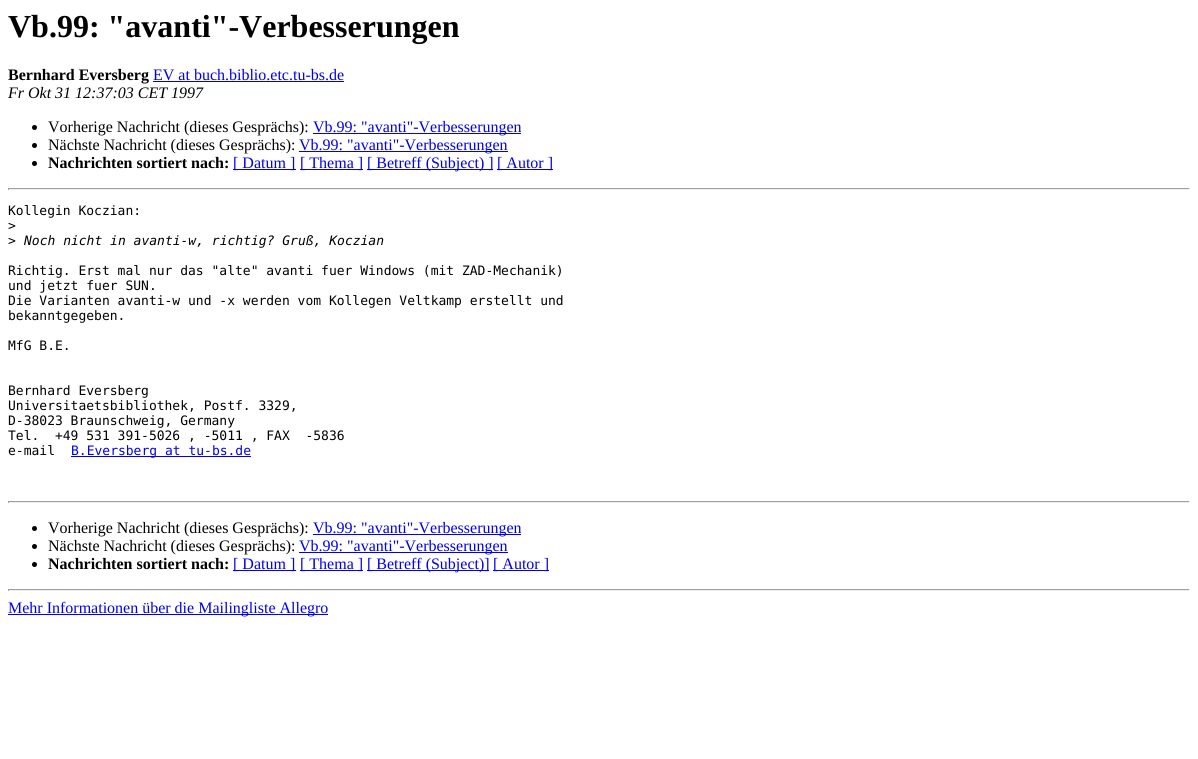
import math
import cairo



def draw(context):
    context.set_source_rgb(1, 1, 1)
    context.paint()
    context.set_source_rgb(0, 0, 238 / 255)
    context.rectangle(153, 81, 191, 1)
    context.fill()
    context.set_source_rgb(0, 0, 0)
    context.arc(34.5, 127.5, 2.5, 0, 2 * math.pi)
    context.fill()
    context.set_source_rgb(0, 0, 238 / 255)
    context.rectangle(313, 133, 208, 1)
    context.fill()
    context.set_source_rgb(0, 0, 0)
    context.arc(34.5, 145.5, 2.5, 0, 2 * math.pi)
    context.fill()
    context.set_source_rgb(0, 0, 238 / 255)
    context.rectangle(299, 151, 209, 1)
    context.fill()
    context.set_source_rgb(0, 0, 0)
    context.arc(34.5, 163.5, 2.5, 0, 2 * math.pi)
    context.fill()
    context.set_source_rgb(0, 0, 238 / 255)
    context.rectangle(233, 169, 63, 1)
    context.fill()
    context.rectangle(300, 169, 63, 1)
    context.fill()
    context.rectangle(367, 169, 126, 1)
    context.fill()
    context.rectangle(497, 169, 56, 1)
    context.fill()
    context.set_source_rgb(159 / 255, 159 / 255, 159 / 255)
    context.rectangle(8, 188, 1182, 1)
    context.fill()
    context.set_source_rgb(238 / 255, 238 / 255, 238 / 255)
    context.rectangle(1189, 188, 1, 2)
    context.fill()
    context.rectangle(8, 189, 1182, 1)
    context.fill()
    context.set_source_rgb(159 / 255, 159 / 255, 159 / 255)
    context.rectangle(8, 188, 1, 2)
    context.fill()
    context.set_source_rgb(0, 0, 238 / 255)
    context.rectangle(71, 456, 180, 1)
    context.fill()
    context.set_source_rgb(159 / 255, 159 / 255, 159 / 255)
    context.rectangle(8, 501, 1182, 1)
    context.fill()
    context.set_source_rgb(238 / 255, 238 / 255, 238 / 255)
    context.rectangle(1189, 501, 1, 2)
    context.fill()
    context.rectangle(8, 502, 1182, 1)
    context.fill()
    context.set_source_rgb(159 / 255, 159 / 255, 159 / 255)
    context.rectangle(8, 501, 1, 2)
    context.fill()
    context.set_source_rgb(0, 0, 0)
    context.arc(34.5, 528.5, 2.5, 0, 2 * math.pi)
    context.fill()
    context.set_source_rgb(0, 0, 238 / 255)
    context.rectangle(313, 534, 208, 1)
    context.fill()
    context.set_source_rgb(0, 0, 0)
    context.arc(34.5, 546.5, 2.5, 0, 2 * math.pi)
    context.fill()
    context.set_source_rgb(0, 0, 238 / 255)
    context.rectangle(299, 552, 209, 1)
    context.fill()
    context.set_source_rgb(0, 0, 0)
    context.arc(34.5, 564.5, 2.5, 0, 2 * math.pi)
    context.fill()
    context.set_source_rgb(0, 0, 238 / 255)
    context.rectangle(233, 570, 63, 1)
    context.fill()
    context.rectangle(300, 570, 63, 1)
    context.fill()
    context.rectangle(367, 570, 122, 1)
    context.fill()
    context.rectangle(493, 570, 56, 1)
    context.fill()
    context.set_source_rgb(159 / 255, 159 / 255, 159 / 255)
    context.rectangle(8, 589, 1182, 1)
    context.fill()
    context.set_source_rgb(238 / 255, 238 / 255, 238 / 255)
    context.rectangle(1189, 589, 1, 2)
    context.fill()
    context.rectangle(8, 590, 1182, 1)
    context.fill()
    context.set_source_rgb(159 / 255, 159 / 255, 159 / 255)
    context.rectangle(8, 589, 1, 2)
    context.fill()
    context.set_source_rgb(0, 0, 238 / 255)
    context.rectangle(8, 614, 320, 1)
    context.fill()
    context.select_font_face("Liberation Serif", cairo.FontSlant.NORMAL, cairo.FontWeight.BOLD)
    context.set_font_size(32)
    context.set_source_rgb(0, 0, 0)
    context.move_to(8, 37)
    context.show_text("Vb.99: \"avanti\"-Verbesserungen")
    context.set_font_size(16)
    context.move_to(8, 80)
    context.show_text("Bernhard Eversberg")
    context.select_font_face("Liberation Serif")
    context.set_source_rgb(0, 0, 238 / 255)
    context.move_to(153, 80)
    context.show_text("EV at buch.biblio.etc.tu-bs.de")
    context.select_font_face("Liberation Serif", cairo.FontSlant.ITALIC)
    context.set_source_rgb(0, 0, 0)
    context.move_to(8, 98)
    context.show_text("Fr Okt 31 12:37:03 CET 1997")
    context.select_font_face("Liberation Serif")
    context.move_to(48, 132)
    context.show_text("Vorherige Nachricht (dieses Gesprächs):")
    context.set_source_rgb(0, 0, 238 / 255)
    context.move_to(313, 132)
    context.show_text("Vb.99: \"avanti\"-Verbesserungen")
    context.set_source_rgb(0, 0, 0)
    context.move_to(48, 150)
    context.show_text("Nächste Nachricht (dieses Gesprächs):")
    context.set_source_rgb(0, 0, 238 / 255)
    context.move_to(299, 150)
    context.show_text("Vb.99: \"avanti\"-Verbesserungen")
    context.select_font_face("Liberation Serif", cairo.FontSlant.NORMAL, cairo.FontWeight.BOLD)
    context.set_source_rgb(0, 0, 0)
    context.move_to(48, 168)
    context.show_text("Nachrichten sortiert nach:")
    context.select_font_face("Liberation Serif")
    context.set_source_rgb(0, 0, 238 / 255)
    context.move_to(233, 168)
    context.show_text("[ Datum ]")
    context.move_to(300, 168)
    context.show_text("[ Thema ]")
    context.move_to(367, 168)
    context.show_text("[ Betreff (Subject) ]")
    context.move_to(497, 168)
    context.show_text("[ Autor ]")
    context.select_font_face("DejaVu Sans Mono")
    context.set_font_size(13)
    context.set_source_rgb(0, 0, 0)
    context.move_to(8, 215)
    context.show_text("Kollegin Koczian:")
    context.move_to(8, 230)
    context.show_text(">")
    context.move_to(8, 245)
    context.show_text(">")
    context.select_font_face("DejaVu Sans Mono", cairo.FontSlant.ITALIC)
    context.move_to(24, 245)
    context.show_text("Noch nicht in avanti-w, richtig? Gruß, Koczian")
    context.select_font_face("DejaVu Sans Mono")
    context.move_to(8, 275)
    context.show_text("Richtig. Erst mal nur das \"alte\" avanti fuer Windows (mit ZAD-Mechanik)")
    context.move_to(8, 290)
    context.show_text("und jetzt fuer SUN.")
    context.move_to(8, 305)
    context.show_text("Die Varianten avanti-w und -x werden vom Kollegen Veltkamp erstellt und")
    context.move_to(8, 320)
    context.show_text("bekanntgegeben.")
    context.move_to(8, 350)
    context.show_text("MfG B.E.")
    context.move_to(8, 395)
    context.show_text("Bernhard Eversberg")
    context.move_to(8, 410)
    context.show_text("Universitaetsbibliothek, Postf. 3329,")
    context.move_to(8, 425)
    context.show_text("D-38023 Braunschweig, Germany")
    context.move_to(8, 440)
    context.show_text("Tel.  +49 531 391-5026 , -5011 , FAX  -5836")
    context.move_to(8, 455)
    context.show_text("e-mail")
    context.set_source_rgb(0, 0, 238 / 255)
    context.move_to(71, 455)
    context.show_text("B.Eversberg at tu-bs.de")
    context.select_font_face("Liberation Serif")
    context.set_font_size(16)
    context.set_source_rgb(0, 0, 0)
    context.move_to(48, 533)
    context.show_text("Vorherige Nachricht (dieses Gesprächs):")
    context.set_source_rgb(0, 0, 238 / 255)
    context.move_to(313, 533)
    context.show_text("Vb.99: \"avanti\"-Verbesserungen")
    context.set_source_rgb(0, 0, 0)
    context.move_to(48, 551)
    context.show_text("Nächste Nachricht (dieses Gesprächs):")
    context.set_source_rgb(0, 0, 238 / 255)
    context.move_to(299, 551)
    context.show_text("Vb.99: \"avanti\"-Verbesserungen")
    context.select_font_face("Liberation Serif", cairo.FontSlant.NORMAL, cairo.FontWeight.BOLD)
    context.set_source_rgb(0, 0, 0)
    context.move_to(48, 569)
    context.show_text("Nachrichten sortiert nach:")
    context.select_font_face("Liberation Serif")
    context.set_source_rgb(0, 0, 238 / 255)
    context.move_to(233, 569)
    context.show_text("[ Datum ]")
    context.move_to(300, 569)
    context.show_text("[ Thema ]")
    context.move_to(367, 569)
    context.show_text("[ Betreff (Subject)]")
    context.move_to(493, 569)
    context.show_text("[ Autor ]")
    context.move_to(8, 613)
    context.show_text("Mehr Informationen über die Mailingliste Allegro")


surface = cairo.ImageSurface(cairo.Format.RGB24, 1198, 759)
context = cairo.Context(surface)
options = cairo.FontOptions()
options.set_hint_metrics(cairo.HintMetrics.OFF)
options.set_hint_style(cairo.HintStyle.NONE)
context.set_font_options(options)
context.set_miter_limit(4)
draw(context)
surface.write_to_png("out.png")
